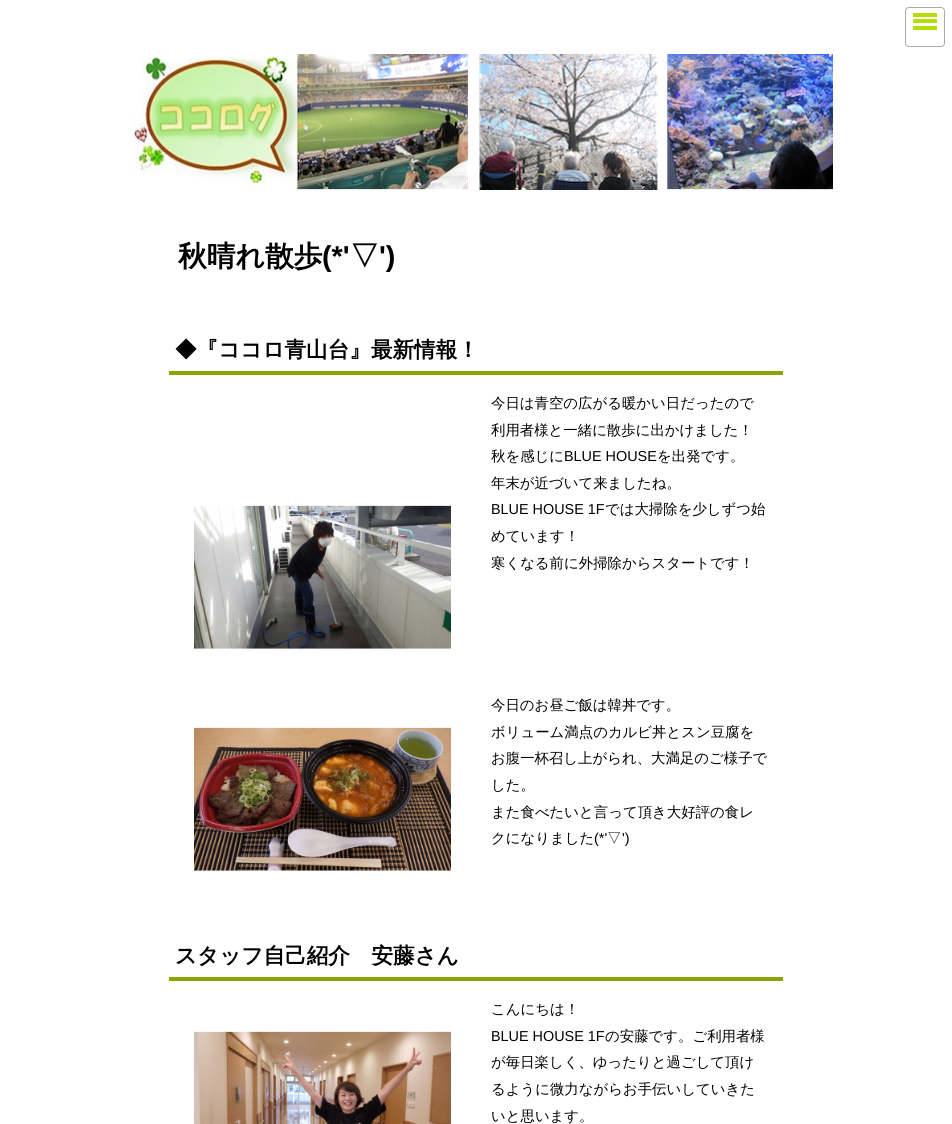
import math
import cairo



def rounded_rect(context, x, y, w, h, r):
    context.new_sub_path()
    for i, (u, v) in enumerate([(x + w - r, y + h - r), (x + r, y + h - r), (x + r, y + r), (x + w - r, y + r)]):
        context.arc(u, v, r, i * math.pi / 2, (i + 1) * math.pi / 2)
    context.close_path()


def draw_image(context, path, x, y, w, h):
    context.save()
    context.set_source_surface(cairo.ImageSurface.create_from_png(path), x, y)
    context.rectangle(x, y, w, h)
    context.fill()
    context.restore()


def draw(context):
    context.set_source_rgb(1, 1, 1)
    context.paint()
    rounded_rect(context, 905.5, 7.5, 39, 39, 3.5)
    context.set_source_rgb(170 / 255, 170 / 255, 170 / 255)
    context.set_line_width(1)
    context.stroke()
    context.set_source_rgb(182 / 255, 221 / 255, 0)
    context.rectangle(913, 13, 24, 4)
    context.fill()
    context.rectangle(913, 19, 24, 4)
    context.fill()
    context.rectangle(913, 26, 24, 4)
    context.fill()
    draw_image(context, "images/1.png", 130, 54, 703, 136)
    context.set_source_rgb(137 / 255, 166 / 255, 0)
    context.rectangle(169, 371, 614, 4)
    context.fill()
    draw_image(context, "images/2.png", 194, 505, 257, 144)
    draw_image(context, "images/3.png", 194, 727, 257, 144)
    context.rectangle(169, 977, 614, 4)
    context.fill()
    draw_image(context, "images/4.png", 194, 1031, 257, 93)
    context.select_font_face("WenQuanYi Zen Hei", cairo.FontSlant.NORMAL, cairo.FontWeight.BOLD)
    context.set_font_size(28.75)
    context.set_source_rgb(0, 0, 0)
    context.move_to(178, 266)
    context.show_text("秋晴れ散歩")
    context.select_font_face("Liberation Sans", cairo.FontSlant.NORMAL, cairo.FontWeight.BOLD)
    context.move_to(322, 266)
    context.show_text("(*'")
    context.select_font_face("WenQuanYi Zen Hei", cairo.FontSlant.NORMAL, cairo.FontWeight.BOLD)
    context.move_to(350, 266)
    context.show_text("▽")
    context.select_font_face("Liberation Sans", cairo.FontSlant.NORMAL, cairo.FontWeight.BOLD)
    context.move_to(379, 266)
    context.show_text("')")
    context.select_font_face("WenQuanYi Zen Hei", cairo.FontSlant.NORMAL, cairo.FontWeight.BOLD)
    context.set_font_size(21.6)
    context.move_to(175, 357)
    context.show_text("◆『ココロ青山台』最新情報！")
    context.select_font_face("WenQuanYi Zen Hei Medium")
    context.set_font_size(14.4)
    context.move_to(491, 408)
    context.show_text("今日は青空の広がる暖かい日だったので")
    context.move_to(491, 435)
    context.show_text("利用者様と一緒に散歩に出かけました！")
    context.move_to(491, 461)
    context.show_text("秋を感じに")
    context.select_font_face("Liberation Sans")
    context.move_to(564, 461)
    context.show_text("BLUE HOUSE")
    context.select_font_face("WenQuanYi Zen Hei Medium")
    context.move_to(657, 461)
    context.show_text("を出発です。")
    context.move_to(491, 488)
    context.show_text("年末が近づいて来ましたね。")
    context.select_font_face("Liberation Sans")
    context.move_to(491, 514)
    context.show_text("BLUE HOUSE 1F")
    context.select_font_face("WenQuanYi Zen Hei Medium")
    context.move_to(605, 514)
    context.show_text("では大掃除を少しずつ始")
    context.move_to(491, 541)
    context.show_text("めています！")
    context.move_to(491, 568)
    context.show_text("寒くなる前に外掃除からスタートです！")
    context.move_to(491, 710)
    context.show_text("今日のお昼ご飯は韓丼です。")
    context.move_to(491, 737)
    context.show_text("ボリューム満点のカルビ丼とスン豆腐を")
    context.move_to(491, 763)
    context.show_text("お腹一杯召し上がられ、大満足のご様子で")
    context.move_to(491, 790)
    context.show_text("した。")
    context.move_to(491, 817)
    context.show_text("また食べたいと言って頂き大好評の食レ")
    context.move_to(491, 843)
    context.show_text("クになりました")
    context.select_font_face("Liberation Sans")
    context.move_to(594, 843)
    context.show_text("(*'")
    context.select_font_face("WenQuanYi Zen Hei Medium")
    context.move_to(607, 843)
    context.show_text("▽")
    context.select_font_face("Liberation Sans")
    context.move_to(622, 843)
    context.show_text("')")
    context.select_font_face("WenQuanYi Zen Hei", cairo.FontSlant.NORMAL, cairo.FontWeight.BOLD)
    context.set_font_size(21.6)
    context.move_to(175, 963)
    context.show_text("スタッフ自己紹介　安藤さん")
    context.select_font_face("WenQuanYi Zen Hei Medium")
    context.set_font_size(14.4)
    context.move_to(491, 1014)
    context.show_text("こんにちは！")
    context.select_font_face("Liberation Sans")
    context.move_to(491, 1041)
    context.show_text("BLUE HOUSE 1F")
    context.select_font_face("WenQuanYi Zen Hei Medium")
    context.move_to(605, 1041)
    context.show_text("の安藤です。ご利用者様")
    context.move_to(491, 1067)
    context.show_text("が毎日楽しく、ゆったりと過ごして頂け")
    context.move_to(491, 1094)
    context.show_text("るように微力ながらお手伝いしていきた")
    context.move_to(491, 1121)
    context.show_text("いと思います。")


surface = cairo.ImageSurface(cairo.Format.RGB24, 952, 1124)
context = cairo.Context(surface)
options = cairo.FontOptions()
options.set_hint_metrics(cairo.HintMetrics.OFF)
options.set_hint_style(cairo.HintStyle.NONE)
context.set_font_options(options)
context.set_miter_limit(4)
draw(context)
surface.write_to_png("out.png")
